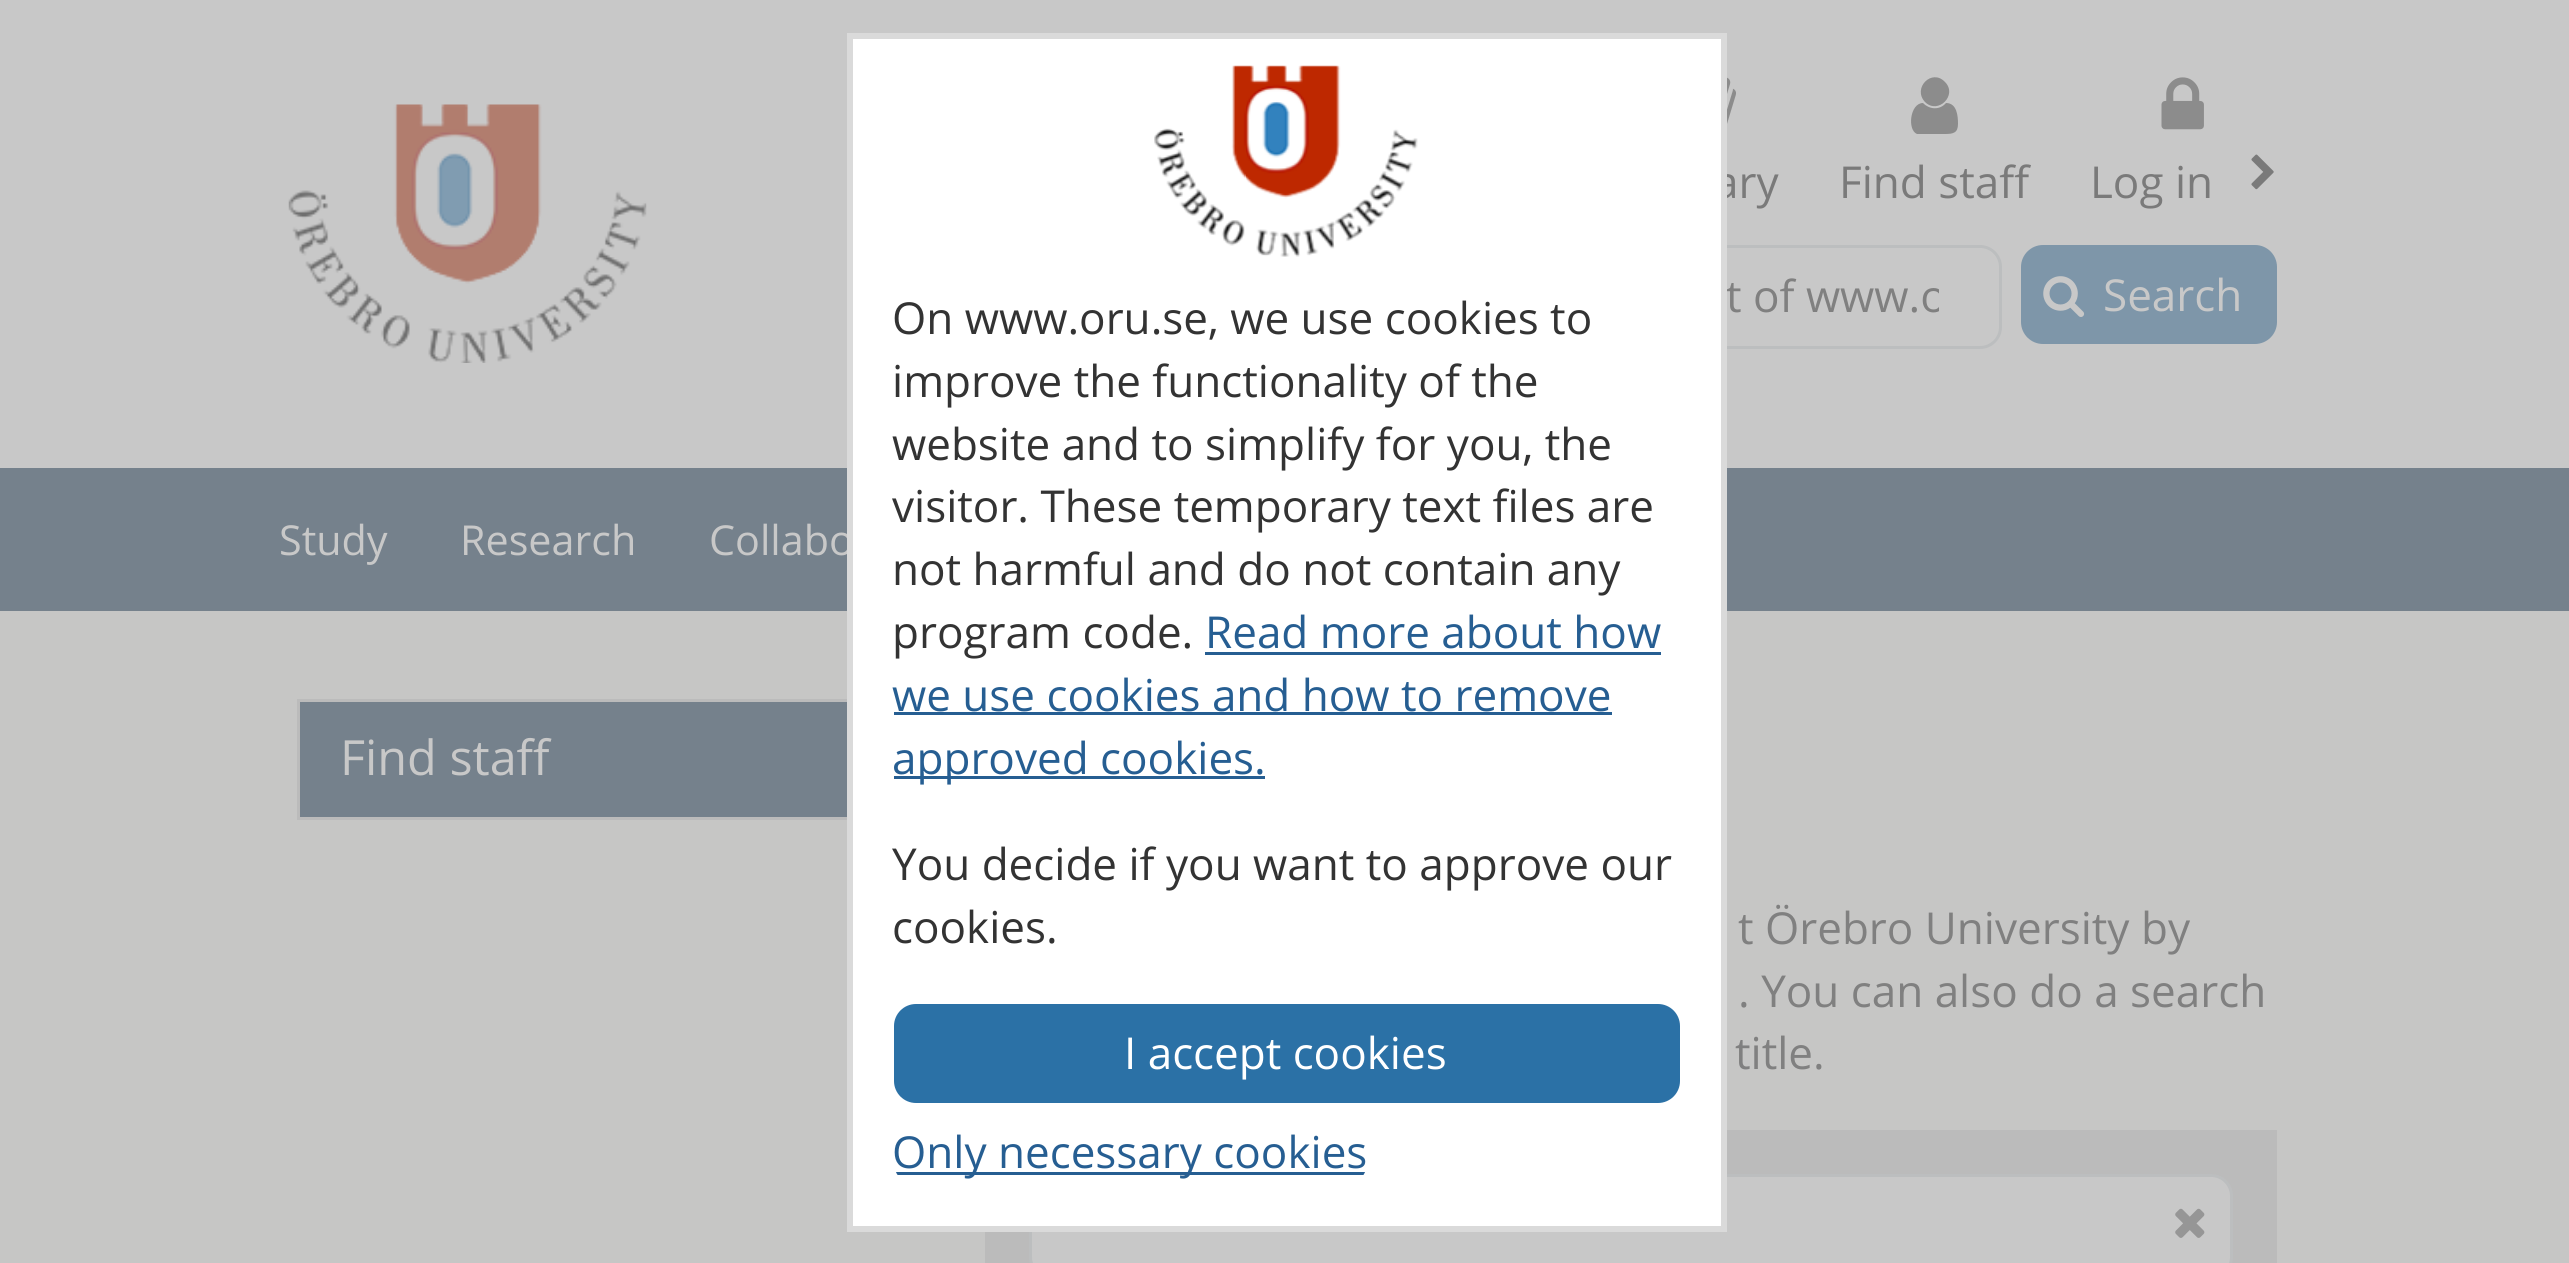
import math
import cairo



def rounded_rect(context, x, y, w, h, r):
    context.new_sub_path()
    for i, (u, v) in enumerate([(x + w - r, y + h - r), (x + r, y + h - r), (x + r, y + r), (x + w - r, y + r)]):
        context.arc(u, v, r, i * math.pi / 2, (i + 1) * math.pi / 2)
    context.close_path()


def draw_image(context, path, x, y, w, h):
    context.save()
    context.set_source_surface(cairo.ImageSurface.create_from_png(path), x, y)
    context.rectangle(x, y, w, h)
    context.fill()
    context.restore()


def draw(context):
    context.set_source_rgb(198 / 255, 198 / 255, 197 / 255)
    context.paint()
    context.set_source_rgb(200 / 255, 200 / 255, 200 / 255)
    context.rectangle(0, 0, 2569, 468)
    context.fill()
    draw_image(context, "images/1.png", 288, 104, 359, 259)
    draw_image(context, "images/2.png", 1727, 77, 9, 47)
    context.set_source_rgb(140 / 255, 140 / 255, 140 / 255)
    context.new_path()
    context.move_to(1958, 124)
    context.curve_to(1958, 133, 1953, 134, 1945, 134)
    context.line_to(1917, 134)
    context.curve_to(1907, 130, 1910, 103, 1923, 103)
    context.curve_to(1930, 110, 1940, 110, 1946, 103)
    context.curve_to(1957, 103, 1958, 116, 1958, 124)
    context.close_path()
    context.move_to(1945, 82)
    context.curve_to(1958, 95, 1938, 115, 1925, 102)
    context.curve_to(1912, 88, 1932, 68, 1945, 82)
    context.close_path()
    context.fill()
    draw_image(context, "images/3.png", 2161, 77, 43, 53)
    draw_image(context, "images/4.png", 2251, 154, 23, 36)
    rounded_rect(context, 1233.5, 246.5, 767, 101, 20.5)
    context.set_source_rgb(188 / 255, 190 / 255, 191 / 255)
    context.set_line_width(3)
    context.stroke()
    context.set_source_rgb(126 / 255, 150 / 255, 169 / 255)
    rounded_rect(context, 2021, 245, 256, 99, 22)
    context.fill()
    draw_image(context, "images/5.png", 2043, 276, 42, 41)
    context.set_source_rgb(117 / 255, 129 / 255, 140 / 255)
    context.rectangle(0, 468, 2569, 143)
    context.fill()
    context.set_source_rgb(187 / 255, 187 / 255, 187 / 255)
    context.rectangle(297, 817, 550, 3)
    context.fill()
    context.rectangle(297, 699, 3, 121)
    context.fill()
    context.set_source_rgb(117 / 255, 129 / 255, 140 / 255)
    context.rectangle(300, 702, 547, 115)
    context.fill()
    context.set_source_rgb(187 / 255, 187 / 255, 187 / 255)
    context.rectangle(300, 699, 547, 3)
    context.fill()
    context.rectangle(985, 1130, 1292, 133)
    context.fill()
    context.set_source_rgb(200 / 255, 200 / 255, 200 / 255)
    rounded_rect(context, 1030.5, 1175.5, 1201, 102, 20.5)
    context.fill_preserve()
    context.set_source_rgb(188 / 255, 190 / 255, 191 / 255)
    context.stroke()
    draw_image(context, "images/7.png", 2175, 1208, 30, 30)
    context.select_font_face("Open Sans")
    context.set_font_size(44)
    context.set_source_rgb(122 / 255, 122 / 255, 122 / 255)
    context.move_to(1714, 198)
    context.show_text("ary")
    context.move_to(1839, 198)
    context.show_text("Find staff")
    context.move_to(2090, 198)
    context.show_text("Log in")
    context.set_source_rgb(200 / 255, 200 / 255, 200 / 255)
    context.move_to(2103, 311)
    context.show_text("Search")
    context.save()
    context.rectangle(1271, 267, 668, 63)
    context.clip()
    context.set_source_rgb(128 / 255, 128 / 255, 128 / 255)
    context.move_to(1726, 312)
    context.show_text("t of www.o")
    context.restore()
    context.set_font_size(41.25)
    context.move_to(279, 555)
    context.show_text("Study")
    context.move_to(460, 555)
    context.show_text("Research")
    context.move_to(709, 555)
    context.show_text("Collabo")
    context.set_source_rgb(1, 1, 1)
    context.rectangle(853, 39, 868, 1187)
    context.fill()
    draw_image(context, "images/6.png", 1154, 65, 264, 192)
    context.rectangle(850, 36, 874, 1193)
    context.set_source_rgb(218 / 255, 218 / 255, 218 / 255)
    context.set_line_width(6)
    context.stroke()
    context.set_font_size(44)
    context.set_source_rgb(51 / 255, 51 / 255, 51 / 255)
    context.move_to(892, 334)
    context.show_text("On www.oru.se, we use cookies to")
    context.move_to(892, 397)
    context.show_text("improve the functionality of the")
    context.move_to(892, 460)
    context.show_text("website and to simplify for you, the")
    context.move_to(892, 522)
    context.show_text("visitor. These temporary text files are")
    context.move_to(892, 585)
    context.show_text("not harmful and do not contain any")
    context.move_to(892, 648)
    context.show_text("program code.")
    context.set_source_rgb(38 / 255, 94 / 255, 146 / 255)
    context.move_to(1205, 648)
    context.show_text("Read more about how")
    context.rectangle(1205, 652, 456, 3)
    context.fill()
    context.move_to(892, 711)
    context.show_text("we use cookies and how to remove")
    context.rectangle(894, 712, 718, 3)
    context.fill()
    context.rectangle(894, 776, 371, 3)
    context.fill()
    context.move_to(892, 774)
    context.show_text("approved cookies.")
    context.set_source_rgb(51 / 255, 51 / 255, 51 / 255)
    context.move_to(892, 880)
    context.show_text("You decide if you want to approve our")
    context.move_to(892, 943)
    context.show_text("cookies.")
    context.set_source_rgb(43 / 255, 113 / 255, 166 / 255)
    rounded_rect(context, 894, 1004, 786, 99, 22)
    context.fill()
    context.set_source_rgb(1, 1, 1)
    context.move_to(1124, 1069)
    context.show_text("I accept cookies")
    context.save()
    rounded_rect(context, 894, 1119, 473, 66, 22)
    context.clip()
    context.set_source_rgb(38 / 255, 94 / 255, 146 / 255)
    context.rectangle(894, 1172, 473, 3)
    context.fill()
    context.restore()
    context.set_source_rgb(38 / 255, 94 / 255, 146 / 255)
    context.move_to(892, 1168)
    context.show_text("Only necessary cookies")
    context.set_font_size(48.5)
    context.set_source_rgb(200 / 255, 200 / 255, 200 / 255)
    context.move_to(340, 775)
    context.show_text("Find staff")
    context.set_font_size(44)
    context.set_source_rgb(128 / 255, 128 / 255, 128 / 255)
    context.move_to(1738, 944)
    context.show_text("t Örebro University by")
    context.move_to(1738, 1007)
    context.show_text(". You can also do a search")
    context.move_to(1735, 1069)
    context.show_text("title.")


surface = cairo.ImageSurface(cairo.Format.RGB24, 2569, 1263)
context = cairo.Context(surface)
options = cairo.FontOptions()
options.set_hint_metrics(cairo.HintMetrics.OFF)
options.set_hint_style(cairo.HintStyle.NONE)
context.set_font_options(options)
context.set_miter_limit(4)
draw(context)
surface.write_to_png("out.png")
